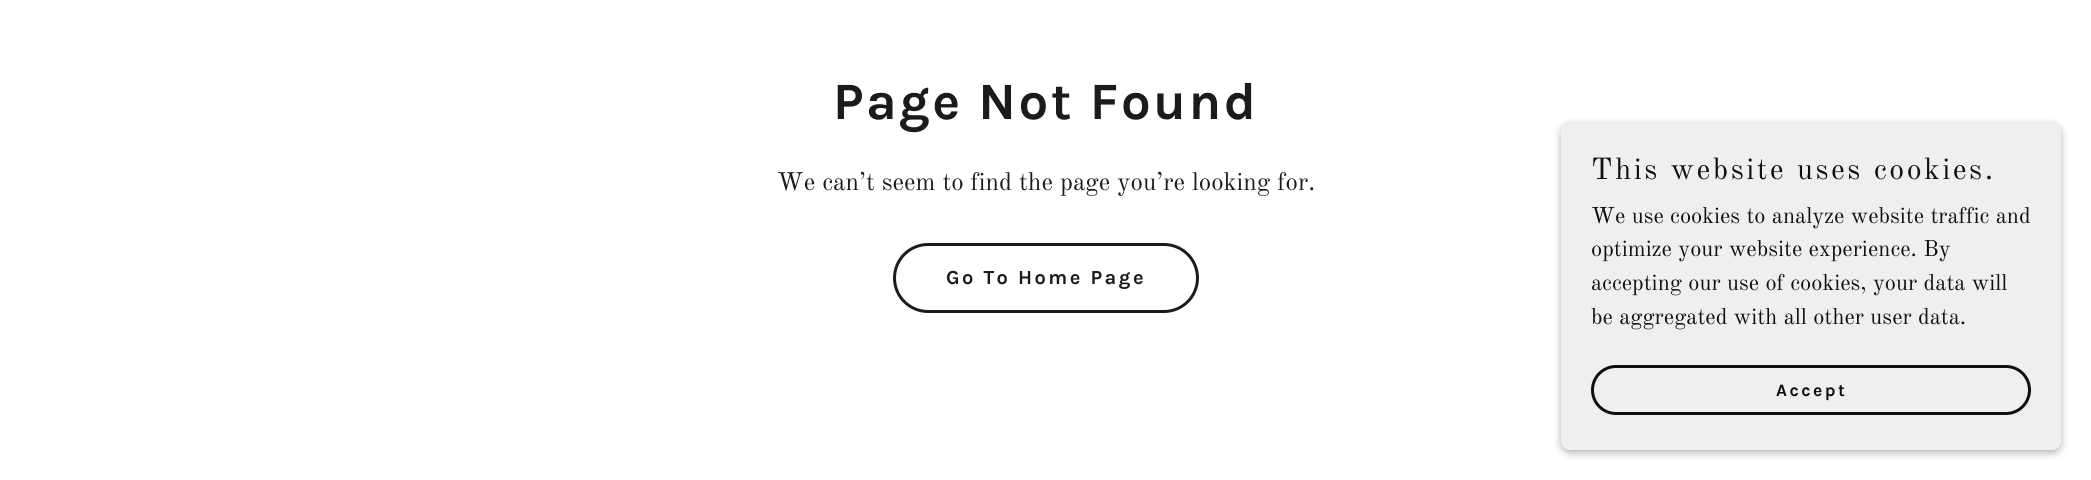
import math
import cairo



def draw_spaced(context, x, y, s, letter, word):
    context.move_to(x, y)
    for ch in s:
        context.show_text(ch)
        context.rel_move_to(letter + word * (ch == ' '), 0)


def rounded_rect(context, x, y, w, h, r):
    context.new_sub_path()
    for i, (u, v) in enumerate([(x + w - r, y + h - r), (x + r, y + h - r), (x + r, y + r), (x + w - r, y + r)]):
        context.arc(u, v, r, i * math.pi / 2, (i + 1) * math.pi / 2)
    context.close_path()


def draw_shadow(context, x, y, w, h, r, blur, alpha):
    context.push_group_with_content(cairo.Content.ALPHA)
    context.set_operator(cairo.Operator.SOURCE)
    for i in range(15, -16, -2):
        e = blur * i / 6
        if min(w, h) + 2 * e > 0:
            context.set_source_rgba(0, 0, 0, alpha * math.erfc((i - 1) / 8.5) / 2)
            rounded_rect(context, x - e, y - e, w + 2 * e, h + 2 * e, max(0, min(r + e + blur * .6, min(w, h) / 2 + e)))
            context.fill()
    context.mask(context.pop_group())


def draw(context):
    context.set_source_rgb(1, 1, 1)
    context.paint()
    rounded_rect(context, 894.5, 244.5, 303, 67, 33.5)
    context.set_source_rgb(27 / 255, 27 / 255, 27 / 255)
    context.set_line_width(3)
    context.stroke()
    context.set_source_rgb(0, 0, 0)
    draw_shadow(context, 1561, 125, 500, 328, 9, 4, 0.3)
    context.set_source_rgb(238 / 255, 239 / 255, 241 / 255)
    rounded_rect(context, 1561, 123, 500, 327, 9)
    context.fill()
    rounded_rect(context, 1592.5, 366.5, 437, 47, 23.5)
    context.set_source_rgb(15 / 255, 15 / 255, 15 / 255)
    context.stroke()
    context.select_font_face("Karla", cairo.FontSlant.NORMAL, cairo.FontWeight.BOLD)
    context.set_font_size(52.5)
    context.set_source_rgb(27 / 255, 27 / 255, 27 / 255)
    draw_spaced(context, 833, 119, "Page Not Found", 2.5, 0)
    context.select_font_face("Old Standard TT")
    context.set_font_size(25)
    context.move_to(777, 190)
    context.show_text("We can’t seem to find the page you’re looking for.")
    context.select_font_face("Karla", cairo.FontSlant.NORMAL, cairo.FontWeight.BOLD)
    context.set_font_size(20)
    draw_spaced(context, 946, 284, "Go To Home Page", 2.5, 0)
    context.select_font_face("Old Standard TT")
    context.set_font_size(30)
    context.set_source_rgb(15 / 255, 15 / 255, 15 / 255)
    draw_spaced(context, 1591, 179, "This website uses cookies.", 2.5, 0)
    context.set_font_size(22.5)
    context.move_to(1591, 223)
    context.show_text("We use cookies to analyze website traffic and")
    context.move_to(1591, 256)
    context.show_text("optimize your website experience. By")
    context.move_to(1591, 290)
    context.show_text("accepting our use of cookies, your data will")
    context.move_to(1591, 324)
    context.show_text("be aggregated with all other user data.")
    context.select_font_face("Karla", cairo.FontSlant.NORMAL, cairo.FontWeight.BOLD)
    context.set_font_size(17.5)
    draw_spaced(context, 1776, 396, "Accept", 2.5, 0)


surface = cairo.ImageSurface(cairo.Format.RGB24, 2091, 480)
context = cairo.Context(surface)
options = cairo.FontOptions()
options.set_hint_metrics(cairo.HintMetrics.OFF)
options.set_hint_style(cairo.HintStyle.NONE)
context.set_font_options(options)
context.set_miter_limit(4)
draw(context)
surface.write_to_png("out.png")
